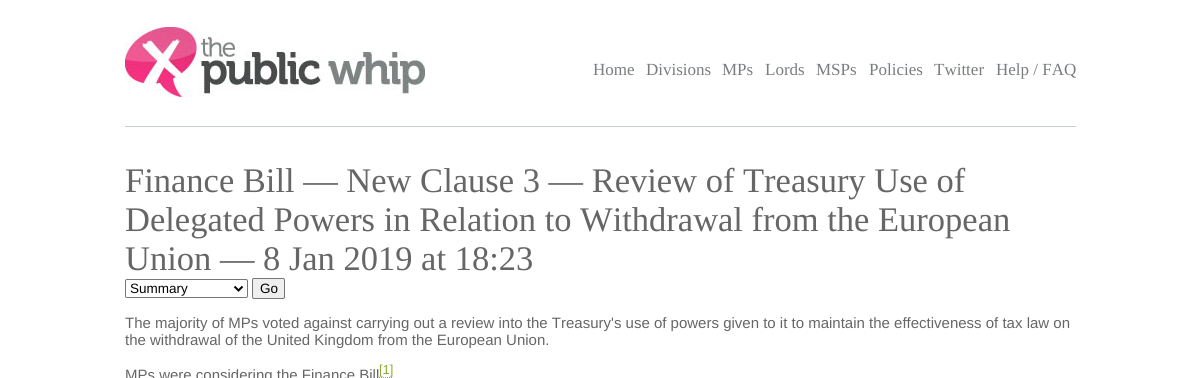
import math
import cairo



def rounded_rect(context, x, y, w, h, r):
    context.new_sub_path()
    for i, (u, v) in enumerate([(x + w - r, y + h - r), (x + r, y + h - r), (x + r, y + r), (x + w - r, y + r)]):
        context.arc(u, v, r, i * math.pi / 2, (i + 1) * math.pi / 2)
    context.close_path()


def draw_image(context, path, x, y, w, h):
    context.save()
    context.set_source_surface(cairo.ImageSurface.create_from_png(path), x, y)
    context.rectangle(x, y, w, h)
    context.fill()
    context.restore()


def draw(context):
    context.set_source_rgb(1, 1, 1)
    context.paint()
    context.set_source_rgb(198 / 255, 206 / 255, 208 / 255)
    context.rectangle(125, 126, 951, 1)
    context.fill()
    draw_image(context, "images/1.png", 125, 27, 300, 70)
    rounded_rect(context, 125.5, 279.5, 122, 18, 1.5)
    context.set_source_rgb(118 / 255, 118 / 255, 118 / 255)
    context.set_line_width(1)
    context.stroke()
    context.new_path()
    context.move_to(234.5, 286.5)
    context.line_to(238.5, 290.5)
    context.line_to(242.5, 286.5)
    context.set_source_rgb(0, 0, 0)
    context.set_line_width(2)
    context.stroke()
    context.set_source_rgb(239 / 255, 239 / 255, 239 / 255)
    rounded_rect(context, 252.5, 278.5, 32, 20, 1.5)
    context.fill_preserve()
    context.set_source_rgb(118 / 255, 118 / 255, 118 / 255)
    context.set_line_width(1)
    context.stroke()
    context.new_path()
    context.move_to(379, 377.5)
    context.line_to(393, 377.5)
    context.set_source_rgb(139 / 255, 172 / 255, 53 / 255)
    context.set_dash([1, 1])
    context.stroke()
    context.select_font_face("Liberation Serif")
    context.set_font_size(17)
    context.set_source_rgb(121 / 255, 125 / 255, 127 / 255)
    context.move_to(593, 75)
    context.show_text("Home")
    context.move_to(646, 75)
    context.show_text("Divisions")
    context.move_to(722, 75)
    context.show_text("MPs")
    context.move_to(765, 75)
    context.show_text("Lords")
    context.move_to(816, 75)
    context.show_text("MSPs")
    context.move_to(869, 75)
    context.show_text("Policies")
    context.move_to(934, 75)
    context.show_text("Twitter")
    context.move_to(996, 75)
    context.show_text("Help / FAQ")
    context.set_font_size(34.5)
    context.set_source_rgb(102 / 255, 102 / 255, 102 / 255)
    context.move_to(125, 192)
    context.show_text("Finance Bill — New Clause 3 — Review of Treasury Use of")
    context.move_to(125, 231)
    context.show_text("Delegated Powers in Relation to Withdrawal from the European")
    context.move_to(125, 270)
    context.show_text("Union — 8 Jan 2019 at 18:23")
    context.select_font_face("Liberation Sans")
    context.set_font_size(13.5)
    context.set_source_rgb(0, 0, 0)
    context.move_to(130, 293)
    context.show_text("Summary")
    context.move_to(260, 293)
    context.show_text("Go")
    context.set_font_size(15)
    context.set_source_rgb(102 / 255, 102 / 255, 102 / 255)
    context.move_to(125, 328)
    context.show_text("The majority of MPs voted against carrying out a review into the Treasury's use of powers given to it to maintain the effectiveness of tax law on")
    context.move_to(125, 345)
    context.show_text("the withdrawal of the United Kingdom from the European Union.")
    context.move_to(125, 380)
    context.show_text("MPs were considering the Finance Bill")
    context.set_font_size(13)
    context.set_source_rgb(139 / 255, 172 / 255, 53 / 255)
    context.move_to(379, 374)
    context.show_text("[1]")


surface = cairo.ImageSurface(cairo.Format.RGB24, 1200, 378)
context = cairo.Context(surface)
options = cairo.FontOptions()
options.set_hint_metrics(cairo.HintMetrics.OFF)
options.set_hint_style(cairo.HintStyle.NONE)
context.set_font_options(options)
context.set_miter_limit(4)
draw(context)
surface.write_to_png("out.png")
